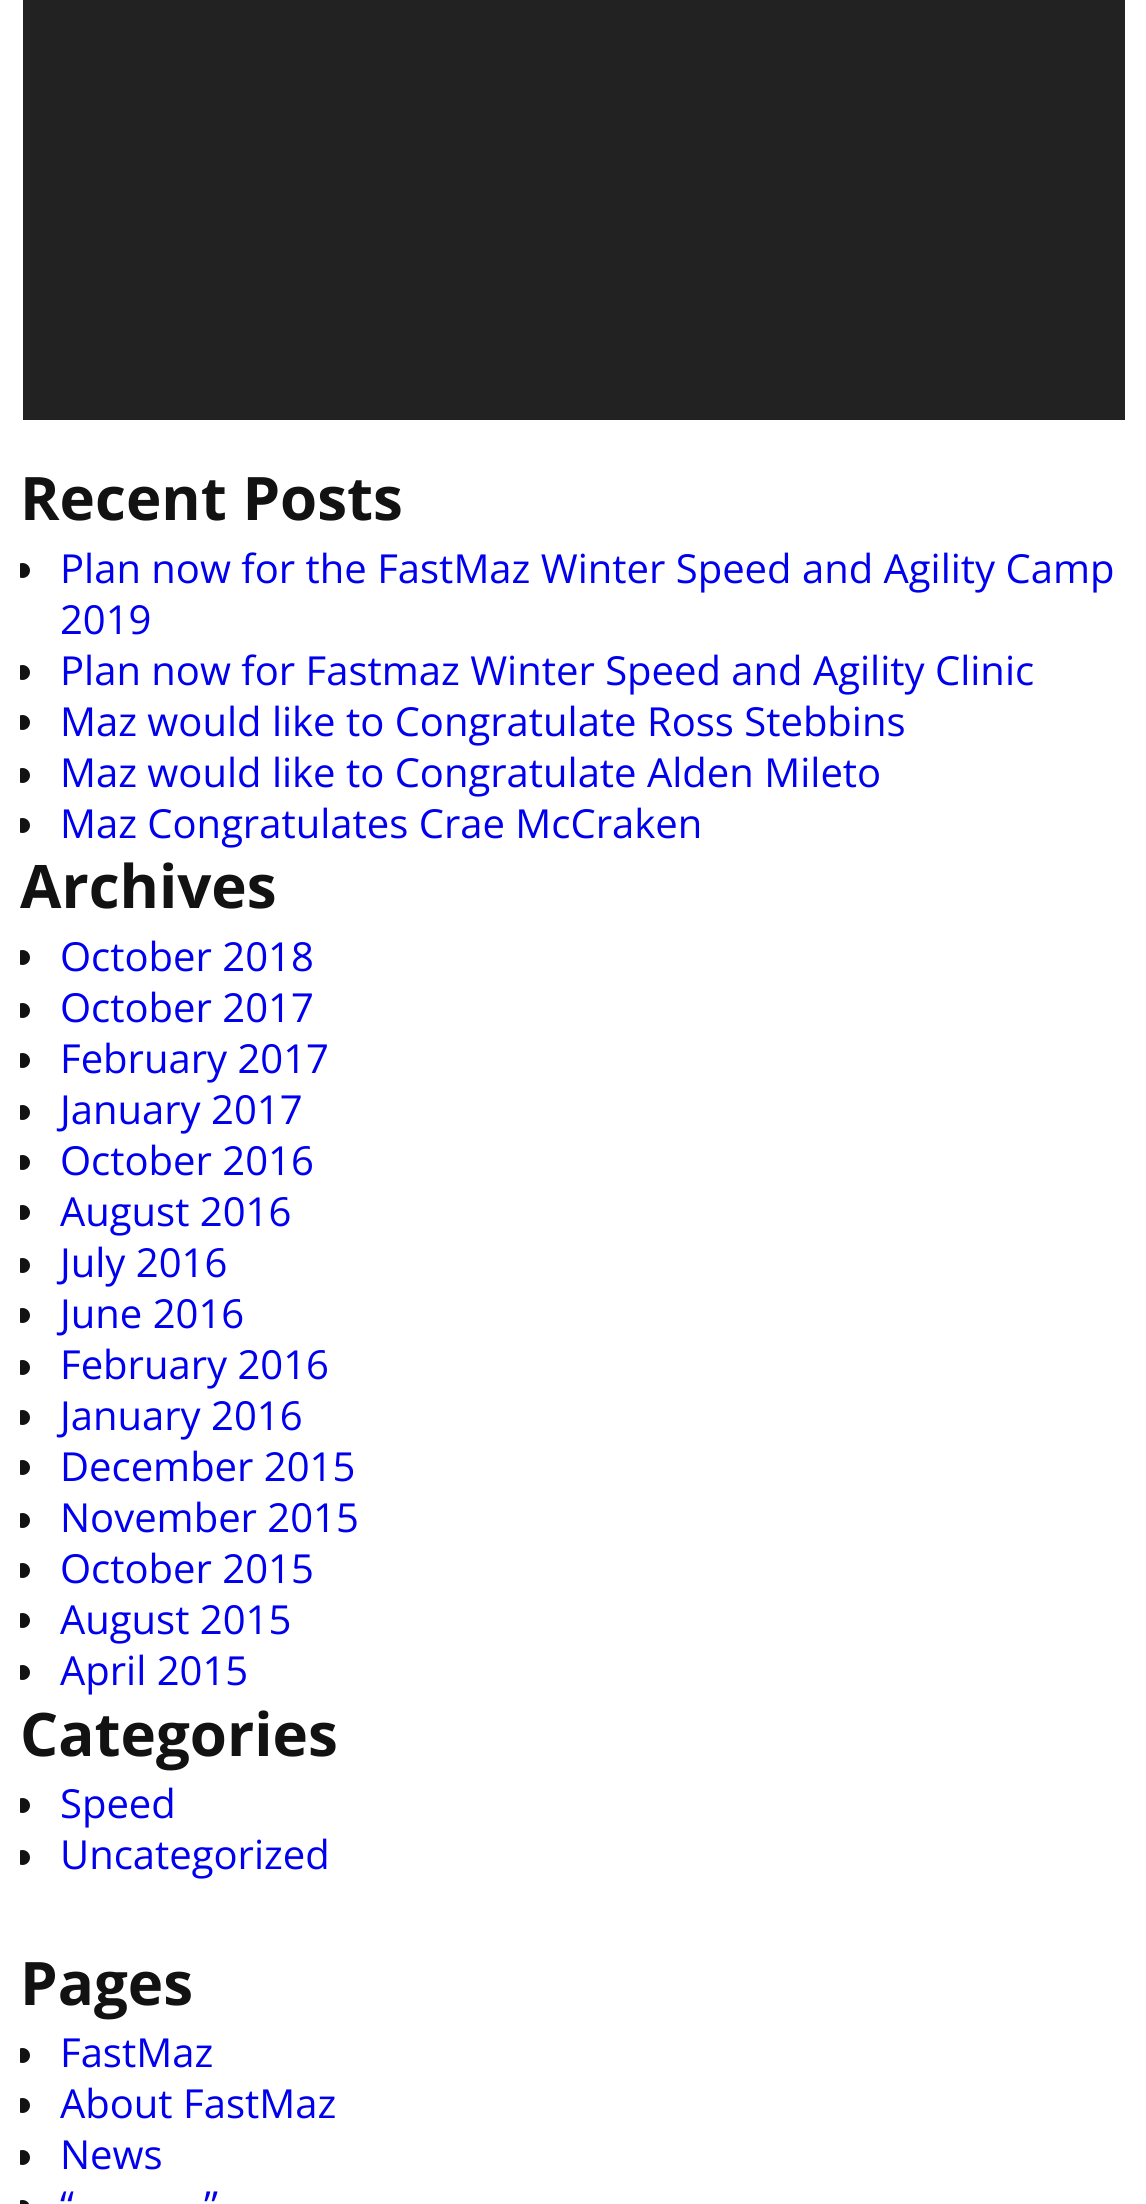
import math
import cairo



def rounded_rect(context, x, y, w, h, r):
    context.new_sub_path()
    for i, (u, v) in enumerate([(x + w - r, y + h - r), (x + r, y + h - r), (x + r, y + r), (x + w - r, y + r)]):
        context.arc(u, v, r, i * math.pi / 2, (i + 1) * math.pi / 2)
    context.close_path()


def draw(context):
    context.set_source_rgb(1, 1, 1)
    context.paint()
    context.set_source_rgb(34 / 255, 34 / 255, 34 / 255)
    context.rectangle(23, 0, 1102, 420)
    context.fill()
    context.save()
    context.rectangle(20, 460, 1108, 388)
    context.clip()
    context.set_source_rgb(18 / 255, 18 / 255, 18 / 255)
    context.arc(22.5, 570.5, 7.5, 0, 2 * math.pi)
    context.fill()
    context.arc(22.5, 672.5, 7.5, 0, 2 * math.pi)
    context.fill()
    context.arc(22.5, 722.5, 7.5, 0, 2 * math.pi)
    context.fill()
    context.arc(22.5, 775.5, 7.5, 0, 2 * math.pi)
    context.fill()
    context.arc(22.5, 825.5, 7.5, 0, 2 * math.pi)
    context.fill()
    context.restore()
    context.save()
    context.rectangle(20, 848, 1108, 847)
    context.clip()
    context.set_source_rgb(18 / 255, 18 / 255, 18 / 255)
    context.arc(22.5, 957.5, 7.5, 0, 2 * math.pi)
    context.fill()
    context.arc(22.5, 1010.5, 7.5, 0, 2 * math.pi)
    context.fill()
    context.arc(22.5, 1060.5, 7.5, 0, 2 * math.pi)
    context.fill()
    context.arc(22.5, 1112.5, 7.5, 0, 2 * math.pi)
    context.fill()
    context.arc(22.5, 1162.5, 7.5, 0, 2 * math.pi)
    context.fill()
    context.arc(22.5, 1212.5, 7.5, 0, 2 * math.pi)
    context.fill()
    context.arc(22.5, 1265.5, 7.5, 0, 2 * math.pi)
    context.fill()
    context.arc(22.5, 1315.5, 7.5, 0, 2 * math.pi)
    context.fill()
    context.arc(22.5, 1367.5, 7.5, 0, 2 * math.pi)
    context.fill()
    context.arc(22.5, 1417.5, 7.5, 0, 2 * math.pi)
    context.fill()
    context.arc(22.5, 1467.5, 7.5, 0, 2 * math.pi)
    context.fill()
    context.arc(22.5, 1520.5, 7.5, 0, 2 * math.pi)
    context.fill()
    context.arc(22.5, 1570.5, 7.5, 0, 2 * math.pi)
    context.fill()
    context.arc(22.5, 1620.5, 7.5, 0, 2 * math.pi)
    context.fill()
    context.arc(22.5, 1672.5, 7.5, 0, 2 * math.pi)
    context.fill()
    context.restore()
    context.save()
    context.rectangle(20, 1695, 1108, 185)
    context.clip()
    context.set_source_rgb(18 / 255, 18 / 255, 18 / 255)
    context.arc(22.5, 1805.5, 7.5, 0, 2 * math.pi)
    context.fill()
    context.arc(22.5, 1857.5, 7.5, 0, 2 * math.pi)
    context.fill()
    context.restore()
    context.save()
    context.rectangle(20, 1945, 1108, 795)
    context.clip()
    context.set_source_rgb(18 / 255, 18 / 255, 18 / 255)
    context.arc(22.5, 2055.5, 7.5, 0, 2 * math.pi)
    context.fill()
    context.arc(22.5, 2105.5, 7.5, 0, 2 * math.pi)
    context.fill()
    context.arc(22.5, 2157.5, 7.5, 0, 2 * math.pi)
    context.fill()
    rounded_rect(context, 15, 2200, 15, 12, 7.5)
    context.fill()
    context.restore()
    context.select_font_face("Open Sans", cairo.FontSlant.NORMAL, cairo.FontWeight.BOLD)
    context.set_font_size(60)
    context.set_source_rgb(18 / 255, 18 / 255, 18 / 255)
    context.move_to(20, 520)
    context.show_text("Recent Posts")
    context.select_font_face("Open Sans")
    context.set_font_size(40)
    context.set_source_rgb(0, 0, 238 / 255)
    context.move_to(60, 583)
    context.show_text("Plan now for the FastMaz Winter Speed and Agility Camp")
    context.move_to(60, 634)
    context.show_text("2019")
    context.move_to(60, 685)
    context.show_text("Plan now for Fastmaz Winter Speed and Agility Clinic")
    context.move_to(60, 736)
    context.show_text("Maz would like to Congratulate Ross Stebbins")
    context.move_to(60, 787)
    context.show_text("Maz would like to Congratulate Alden Mileto")
    context.move_to(60, 838)
    context.show_text("Maz Congratulates Crae McCraken")
    context.select_font_face("Open Sans", cairo.FontSlant.NORMAL, cairo.FontWeight.BOLD)
    context.set_font_size(60)
    context.set_source_rgb(18 / 255, 18 / 255, 18 / 255)
    context.move_to(20, 908)
    context.show_text("Archives")
    context.select_font_face("Open Sans")
    context.set_font_size(40)
    context.set_source_rgb(0, 0, 238 / 255)
    context.move_to(60, 971)
    context.show_text("October 2018")
    context.move_to(60, 1022)
    context.show_text("October 2017")
    context.move_to(60, 1073)
    context.show_text("February 2017")
    context.move_to(60, 1124)
    context.show_text("January 2017")
    context.move_to(60, 1175)
    context.show_text("October 2016")
    context.move_to(60, 1226)
    context.show_text("August 2016")
    context.move_to(60, 1277)
    context.show_text("July 2016")
    context.move_to(60, 1328)
    context.show_text("June 2016")
    context.move_to(60, 1379)
    context.show_text("February 2016")
    context.move_to(60, 1430)
    context.show_text("January 2016")
    context.move_to(60, 1481)
    context.show_text("December 2015")
    context.move_to(60, 1532)
    context.show_text("November 2015")
    context.move_to(60, 1583)
    context.show_text("October 2015")
    context.move_to(60, 1634)
    context.show_text("August 2015")
    context.move_to(60, 1685)
    context.show_text("April 2015")
    context.select_font_face("Open Sans", cairo.FontSlant.NORMAL, cairo.FontWeight.BOLD)
    context.set_font_size(60)
    context.set_source_rgb(18 / 255, 18 / 255, 18 / 255)
    context.move_to(20, 1756)
    context.show_text("Categories")
    context.select_font_face("Open Sans")
    context.set_font_size(40)
    context.set_source_rgb(0, 0, 238 / 255)
    context.move_to(60, 1818)
    context.show_text("Speed")
    context.move_to(60, 1869)
    context.show_text("Uncategorized")
    context.select_font_face("Open Sans", cairo.FontSlant.NORMAL, cairo.FontWeight.BOLD)
    context.set_font_size(60)
    context.set_source_rgb(18 / 255, 18 / 255, 18 / 255)
    context.move_to(20, 2005)
    context.show_text("Pages")
    context.select_font_face("Open Sans")
    context.set_font_size(40)
    context.set_source_rgb(0, 0, 238 / 255)
    context.move_to(60, 2067)
    context.show_text("FastMaz")
    context.move_to(60, 2118)
    context.show_text("About FastMaz")
    context.move_to(60, 2169)
    context.show_text("News")
    context.move_to(60, 2220)
    context.show_text("“")
    context.move_to(204, 2220)
    context.show_text("”")


surface = cairo.ImageSurface(cairo.Format.RGB24, 1146, 2204)
context = cairo.Context(surface)
options = cairo.FontOptions()
options.set_hint_metrics(cairo.HintMetrics.OFF)
options.set_hint_style(cairo.HintStyle.NONE)
context.set_font_options(options)
context.set_miter_limit(4)
draw(context)
surface.write_to_png("out.png")
